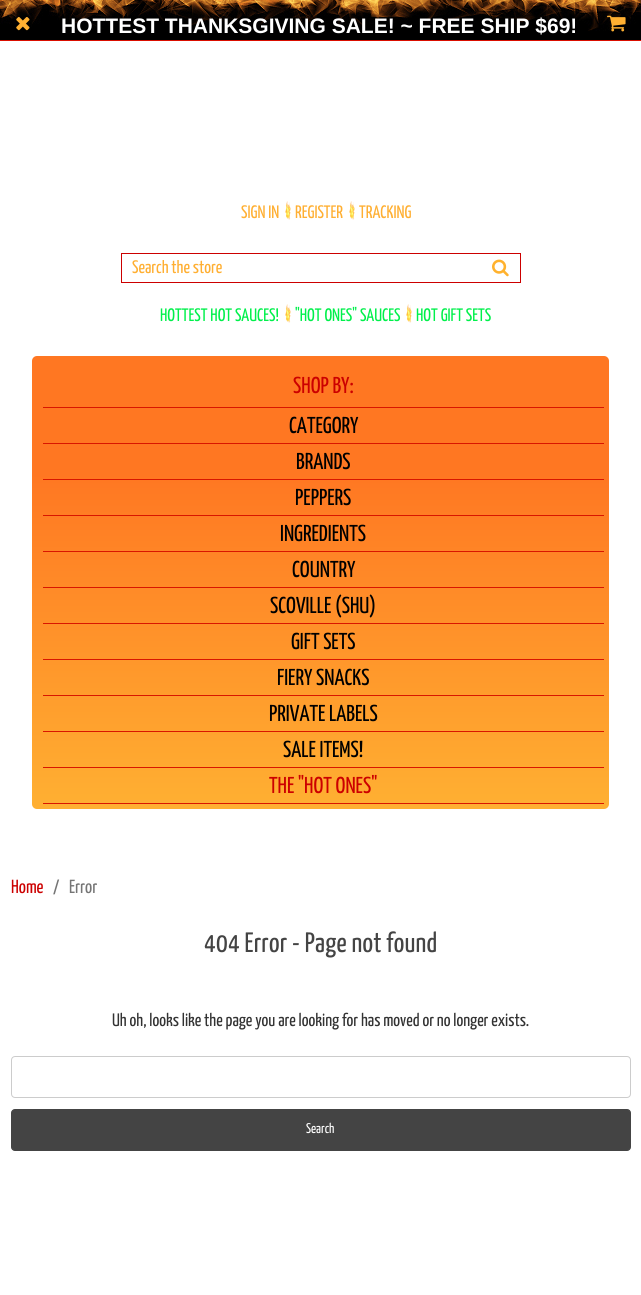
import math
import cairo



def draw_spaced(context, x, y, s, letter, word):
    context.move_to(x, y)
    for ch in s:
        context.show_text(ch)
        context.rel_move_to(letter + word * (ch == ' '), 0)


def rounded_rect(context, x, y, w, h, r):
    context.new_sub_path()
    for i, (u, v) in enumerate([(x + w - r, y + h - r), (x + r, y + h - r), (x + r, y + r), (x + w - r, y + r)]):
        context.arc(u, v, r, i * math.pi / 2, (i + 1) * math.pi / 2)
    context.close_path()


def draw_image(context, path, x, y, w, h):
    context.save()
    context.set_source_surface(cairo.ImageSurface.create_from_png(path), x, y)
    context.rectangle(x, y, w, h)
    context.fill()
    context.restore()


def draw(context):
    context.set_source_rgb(1, 1, 1)
    context.paint()
    context.set_source_rgb(0, 0, 0)
    context.rectangle(0, 31, 641, 9)
    context.fill()
    draw_image(context, "images/1.png", 0, 0, 641, 31)
    context.set_source_rgb(218 / 255, 14 / 255, 0)
    context.rectangle(0, 40, 641, 1)
    context.fill()
    draw_image(context, "images/2.png", 16, 17, 14, 14)
    draw_image(context, "images/3.png", 607, 15, 19, 17)
    draw_image(context, "images/4.png", 285, 201, 6, 19)
    draw_image(context, "images/4.png", 349, 201, 6, 19)
    context.rectangle(121.5, 253.5, 399, 29)
    context.set_source_rgb(204 / 255, 0, 0)
    context.set_line_width(1)
    context.stroke()
    draw_image(context, "images/5.png", 492, 259, 17, 18)
    draw_image(context, "images/4.png", 285, 304, 6, 19)
    draw_image(context, "images/4.png", 406, 304, 6, 19)
    gradient = cairo.LinearGradient(321, 809, 321, 356)
    gradient.add_color_stop_rgba(0, 1, 176 / 255, 50 / 255, 1)
    gradient.add_color_stop_rgba(0.74, 1, 119 / 255, 34 / 255, 1)
    gradient.add_color_stop_rgba(1, 1, 119 / 255, 34 / 255, 1)
    context.set_source(gradient)
    rounded_rect(context, 32, 356, 577, 453, 5)
    context.fill()
    context.set_source_rgb(217 / 255, 22 / 255, 0)
    context.rectangle(43, 407, 561, 1)
    context.fill()
    context.rectangle(43, 443, 561, 1)
    context.fill()
    context.rectangle(43, 479, 561, 1)
    context.fill()
    context.rectangle(43, 515, 561, 1)
    context.fill()
    context.rectangle(43, 551, 561, 1)
    context.fill()
    context.rectangle(43, 587, 561, 1)
    context.fill()
    context.rectangle(43, 623, 561, 1)
    context.fill()
    context.rectangle(43, 659, 561, 1)
    context.fill()
    context.rectangle(43, 695, 561, 1)
    context.fill()
    context.rectangle(43, 731, 561, 1)
    context.fill()
    context.rectangle(43, 767, 561, 1)
    context.fill()
    context.rectangle(43, 803, 561, 1)
    context.fill()
    rounded_rect(context, 11.5, 1056.5, 619, 41, 3.5)
    context.set_source_rgb(204 / 255, 204 / 255, 204 / 255)
    context.stroke()
    context.set_source_rgb(68 / 255, 68 / 255, 68 / 255)
    rounded_rect(context, 11.5, 1109.5, 619, 41, 3.5)
    context.fill_preserve()
    context.stroke()
    context.select_font_face("Liberation Sans", cairo.FontSlant.NORMAL, cairo.FontWeight.BOLD)
    context.set_font_size(21)
    context.set_source_rgb(1, 1, 1)
    context.move_to(61, 33)
    context.show_text("HOTTEST THANKSGIVING SALE! ~ FREE SHIP $69!")
    context.select_font_face("Yanone Kaffeesatz")
    context.set_font_size(18)
    context.set_source_rgb(1, 175 / 255, 50 / 255)
    context.move_to(241, 218)
    context.show_text("SIGN IN")
    context.move_to(295, 218)
    context.show_text("REGISTER")
    context.move_to(359, 218)
    context.show_text("TRACKING")
    context.save()
    context.rectangle(132, 260, 338, 18)
    context.clip()
    context.move_to(132, 273)
    context.show_text("Search the store")
    context.restore()
    context.set_source_rgb(0, 240 / 255, 75 / 255)
    context.move_to(160, 321)
    context.show_text("HOTTEST HOT SAUCES!")
    context.move_to(295, 321)
    context.show_text("\"HOT ONES\" SAUCES")
    context.move_to(416, 321)
    context.show_text("HOT GIFT SETS")
    context.set_font_size(23)
    context.set_source_rgb(204 / 255, 0, 0)
    context.move_to(293, 393)
    context.show_text("SHOP BY:")
    context.set_source_rgb(0, 0, 0)
    context.move_to(289, 433)
    context.show_text("CATEGORY")
    context.move_to(296, 469)
    context.show_text("BRANDS")
    context.move_to(295, 505)
    context.show_text("PEPPERS")
    context.move_to(280, 541)
    context.show_text("INGREDIENTS")
    context.move_to(292, 577)
    context.show_text("COUNTRY")
    context.move_to(270, 613)
    context.show_text("SCOVILLE (SHU)")
    context.move_to(291, 649)
    context.show_text("GIFT SETS")
    context.move_to(277, 685)
    context.show_text("FIERY SNACKS")
    context.move_to(269, 721)
    context.show_text("PRIVATE LABELS")
    context.move_to(283, 757)
    context.show_text("SALE ITEMS!")
    context.set_source_rgb(204 / 255, 0, 0)
    context.move_to(269, 793)
    context.show_text("THE \"HOT ONES\"")
    context.set_font_size(19)
    context.move_to(11, 893)
    context.show_text("Home")
    context.set_source_rgb(117 / 255, 117 / 255, 117 / 255)
    context.move_to(53, 894)
    context.show_text("/")
    context.move_to(69, 893)
    context.show_text("Error")
    context.set_font_size(28)
    context.set_source_rgb(68 / 255, 68 / 255, 68 / 255)
    draw_spaced(context, 204, 952, "404 Error - Page not found", 0.25, 0)
    context.set_font_size(18)
    context.set_source_rgb(51 / 255, 51 / 255, 51 / 255)
    context.move_to(112, 1026)
    context.show_text("Uh oh, looks like the page you are looking for has moved or no longer exists.")
    context.set_font_size(14)
    context.set_source_rgb(1, 1, 1)
    context.move_to(306, 1133)
    context.show_text("Search")


surface = cairo.ImageSurface(cairo.Format.RGB24, 641, 1295)
context = cairo.Context(surface)
options = cairo.FontOptions()
options.set_hint_metrics(cairo.HintMetrics.OFF)
options.set_hint_style(cairo.HintStyle.NONE)
context.set_font_options(options)
context.set_miter_limit(4)
draw(context)
surface.write_to_png("out.png")
